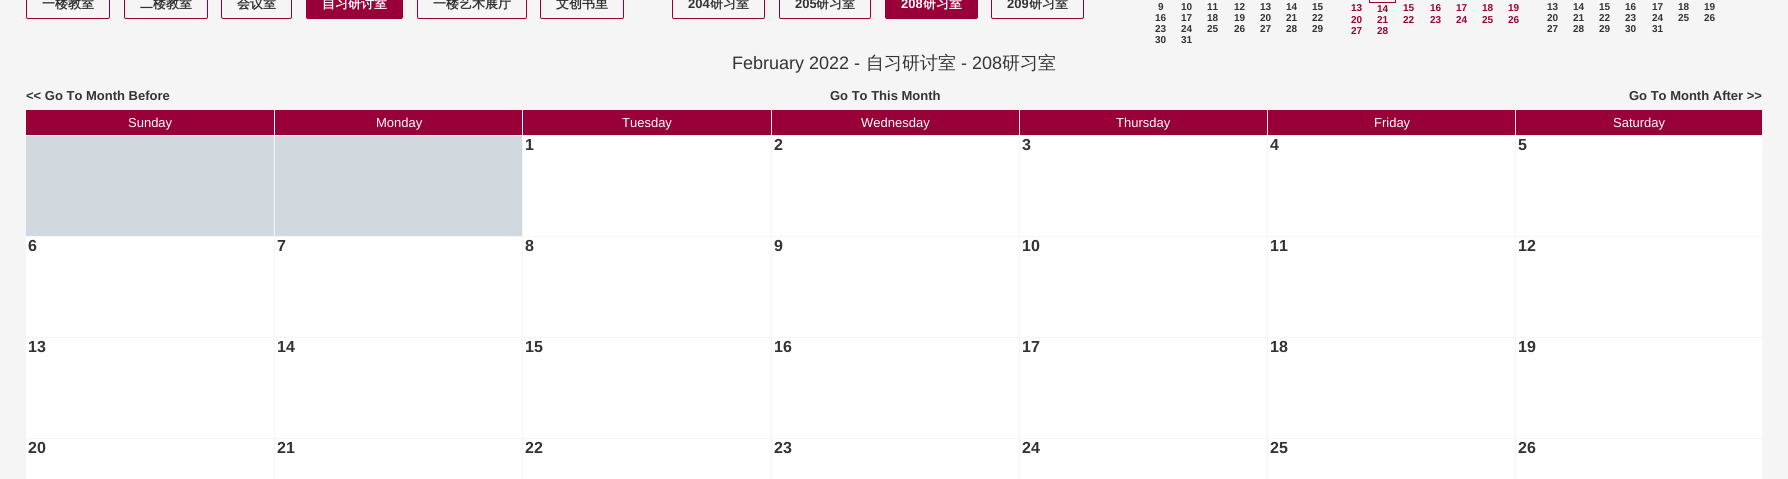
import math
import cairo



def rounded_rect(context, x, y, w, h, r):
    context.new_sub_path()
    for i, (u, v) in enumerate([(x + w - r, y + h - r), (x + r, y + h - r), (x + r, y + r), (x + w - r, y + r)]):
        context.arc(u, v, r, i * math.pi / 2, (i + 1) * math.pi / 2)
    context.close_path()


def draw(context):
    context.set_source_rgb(245 / 255, 245 / 255, 245 / 255)
    context.paint()
    rounded_rect(context, 26.5, -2.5, 83, 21, 1.5)
    context.set_source_rgb(154 / 255, 0, 56 / 255)
    context.set_line_width(1)
    context.stroke()
    rounded_rect(context, 124.5, -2.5, 83, 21, 1.5)
    context.stroke()
    rounded_rect(context, 221.5, -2.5, 70, 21, 1.5)
    context.stroke()
    rounded_rect(context, 306.5, -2.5, 96, 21, 1.5)
    context.fill_preserve()
    context.stroke()
    rounded_rect(context, 417.5, -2.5, 109, 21, 1.5)
    context.stroke()
    rounded_rect(context, 540.5, -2.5, 83, 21, 1.5)
    context.stroke()
    rounded_rect(context, 672.5, -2.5, 92, 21, 1.5)
    context.stroke()
    rounded_rect(context, 779.5, -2.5, 91, 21, 1.5)
    context.stroke()
    rounded_rect(context, 885.5, -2.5, 92, 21, 1.5)
    context.fill_preserve()
    context.stroke()
    rounded_rect(context, 991.5, -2.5, 92, 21, 1.5)
    context.stroke()
    context.rectangle(1395, 0, 1, 3)
    context.fill()
    context.rectangle(1369, 2, 27, 1)
    context.fill()
    context.rectangle(1369, 0, 1, 3)
    context.fill()
    context.rectangle(26, 110, 248, 25)
    context.fill()
    context.rectangle(275, 110, 247, 25)
    context.fill()
    context.rectangle(523, 110, 248, 25)
    context.fill()
    context.rectangle(772, 110, 247, 25)
    context.fill()
    context.rectangle(1020, 110, 247, 25)
    context.fill()
    context.rectangle(1268, 110, 247, 25)
    context.fill()
    context.rectangle(1516, 110, 246, 25)
    context.fill()
    context.set_source_rgb(209 / 255, 217 / 255, 222 / 255)
    context.rectangle(26, 136, 248, 100)
    context.fill()
    context.rectangle(275, 136, 247, 100)
    context.fill()
    context.set_source_rgb(1, 1, 1)
    context.rectangle(523, 136, 248, 100)
    context.fill()
    context.rectangle(772, 136, 247, 100)
    context.fill()
    context.rectangle(1020, 136, 247, 100)
    context.fill()
    context.rectangle(1268, 136, 247, 100)
    context.fill()
    context.rectangle(1516, 136, 246, 100)
    context.fill()
    context.rectangle(26, 237, 248, 100)
    context.fill()
    context.rectangle(275, 237, 247, 100)
    context.fill()
    context.rectangle(523, 237, 248, 100)
    context.fill()
    context.rectangle(772, 237, 247, 100)
    context.fill()
    context.rectangle(1020, 237, 247, 100)
    context.fill()
    context.rectangle(1268, 237, 247, 100)
    context.fill()
    context.rectangle(1516, 237, 246, 100)
    context.fill()
    context.rectangle(26, 338, 248, 100)
    context.fill()
    context.rectangle(275, 338, 247, 100)
    context.fill()
    context.rectangle(523, 338, 248, 100)
    context.fill()
    context.rectangle(772, 338, 247, 100)
    context.fill()
    context.rectangle(1020, 338, 247, 100)
    context.fill()
    context.rectangle(1268, 338, 247, 100)
    context.fill()
    context.rectangle(1516, 338, 246, 100)
    context.fill()
    context.rectangle(26, 439, 248, 40)
    context.fill()
    context.rectangle(275, 439, 247, 40)
    context.fill()
    context.rectangle(523, 439, 248, 40)
    context.fill()
    context.rectangle(772, 439, 247, 40)
    context.fill()
    context.rectangle(1020, 439, 247, 40)
    context.fill()
    context.rectangle(1268, 439, 247, 40)
    context.fill()
    context.rectangle(1516, 439, 246, 40)
    context.fill()
    context.select_font_face("WenQuanYi Zen Hei", cairo.FontSlant.NORMAL, cairo.FontWeight.BOLD)
    context.set_font_size(13)
    context.set_source_rgb(51 / 255, 51 / 255, 51 / 255)
    context.move_to(42, 8)
    context.show_text("一楼教室")
    context.move_to(140, 8)
    context.show_text("二楼教室")
    context.move_to(237, 8)
    context.show_text("会议室")
    context.set_source_rgb(1, 1, 1)
    context.move_to(322, 8)
    context.show_text("自习研讨室")
    context.set_source_rgb(51 / 255, 51 / 255, 51 / 255)
    context.move_to(433, 8)
    context.show_text("一楼艺术展厅")
    context.move_to(556, 8)
    context.show_text("文创书里")
    context.select_font_face("Liberation Sans", cairo.FontSlant.NORMAL, cairo.FontWeight.BOLD)
    context.move_to(688, 8)
    context.show_text("204")
    context.select_font_face("WenQuanYi Zen Hei", cairo.FontSlant.NORMAL, cairo.FontWeight.BOLD)
    context.move_to(710, 8)
    context.show_text("研习室")
    context.select_font_face("Liberation Sans", cairo.FontSlant.NORMAL, cairo.FontWeight.BOLD)
    context.move_to(795, 8)
    context.show_text("205")
    context.select_font_face("WenQuanYi Zen Hei", cairo.FontSlant.NORMAL, cairo.FontWeight.BOLD)
    context.move_to(816, 8)
    context.show_text("研习室")
    context.select_font_face("Liberation Sans", cairo.FontSlant.NORMAL, cairo.FontWeight.BOLD)
    context.set_source_rgb(1, 1, 1)
    context.move_to(901, 8)
    context.show_text("208")
    context.select_font_face("WenQuanYi Zen Hei", cairo.FontSlant.NORMAL, cairo.FontWeight.BOLD)
    context.move_to(923, 8)
    context.show_text("研习室")
    context.select_font_face("Liberation Sans", cairo.FontSlant.NORMAL, cairo.FontWeight.BOLD)
    context.set_source_rgb(51 / 255, 51 / 255, 51 / 255)
    context.move_to(1007, 8)
    context.show_text("209")
    context.select_font_face("WenQuanYi Zen Hei", cairo.FontSlant.NORMAL, cairo.FontWeight.BOLD)
    context.move_to(1029, 8)
    context.show_text("研习室")
    context.select_font_face("Liberation Sans", cairo.FontSlant.NORMAL, cairo.FontWeight.BOLD)
    context.set_font_size(10)
    context.move_to(1158, 10)
    context.show_text("9")
    context.move_to(1181, 10)
    context.show_text("10")
    context.move_to(1207, 10)
    context.show_text("11")
    context.move_to(1234, 10)
    context.show_text("12")
    context.move_to(1260, 10)
    context.show_text("13")
    context.move_to(1286, 10)
    context.show_text("14")
    context.move_to(1312, 10)
    context.show_text("15")
    context.move_to(1155, 21)
    context.show_text("16")
    context.move_to(1181, 21)
    context.show_text("17")
    context.move_to(1207, 21)
    context.show_text("18")
    context.move_to(1234, 21)
    context.show_text("19")
    context.move_to(1260, 21)
    context.show_text("20")
    context.move_to(1286, 21)
    context.show_text("21")
    context.move_to(1312, 21)
    context.show_text("22")
    context.move_to(1155, 32)
    context.show_text("23")
    context.move_to(1181, 32)
    context.show_text("24")
    context.move_to(1207, 32)
    context.show_text("25")
    context.move_to(1234, 32)
    context.show_text("26")
    context.move_to(1260, 32)
    context.show_text("27")
    context.move_to(1286, 32)
    context.show_text("28")
    context.move_to(1312, 32)
    context.show_text("29")
    context.move_to(1155, 43)
    context.show_text("30")
    context.move_to(1181, 43)
    context.show_text("31")
    context.set_source_rgb(154 / 255, 0, 56 / 255)
    context.move_to(1351, 11)
    context.show_text("13")
    context.move_to(1377, 12)
    context.show_text("14")
    context.move_to(1403, 11)
    context.show_text("15")
    context.move_to(1430, 11)
    context.show_text("16")
    context.move_to(1456, 11)
    context.show_text("17")
    context.move_to(1482, 11)
    context.show_text("18")
    context.move_to(1508, 11)
    context.show_text("19")
    context.move_to(1351, 23)
    context.show_text("20")
    context.move_to(1377, 23)
    context.show_text("21")
    context.move_to(1403, 23)
    context.show_text("22")
    context.move_to(1430, 23)
    context.show_text("23")
    context.move_to(1456, 23)
    context.show_text("24")
    context.move_to(1482, 23)
    context.show_text("25")
    context.move_to(1508, 23)
    context.show_text("26")
    context.move_to(1351, 34)
    context.show_text("27")
    context.move_to(1377, 34)
    context.show_text("28")
    context.set_source_rgb(51 / 255, 51 / 255, 51 / 255)
    context.move_to(1547, 10)
    context.show_text("13")
    context.move_to(1573, 10)
    context.show_text("14")
    context.move_to(1599, 10)
    context.show_text("15")
    context.move_to(1625, 10)
    context.show_text("16")
    context.move_to(1652, 10)
    context.show_text("17")
    context.move_to(1678, 10)
    context.show_text("18")
    context.move_to(1704, 10)
    context.show_text("19")
    context.move_to(1547, 21)
    context.show_text("20")
    context.move_to(1573, 21)
    context.show_text("21")
    context.move_to(1599, 21)
    context.show_text("22")
    context.move_to(1625, 21)
    context.show_text("23")
    context.move_to(1652, 21)
    context.show_text("24")
    context.move_to(1678, 21)
    context.show_text("25")
    context.move_to(1704, 21)
    context.show_text("26")
    context.move_to(1547, 32)
    context.show_text("27")
    context.move_to(1573, 32)
    context.show_text("28")
    context.move_to(1599, 32)
    context.show_text("29")
    context.move_to(1625, 32)
    context.show_text("30")
    context.move_to(1652, 32)
    context.show_text("31")
    context.select_font_face("Liberation Sans")
    context.set_font_size(18)
    context.move_to(732, 69)
    context.show_text("February 2022 -")
    context.select_font_face("WenQuanYi Zen Hei Medium")
    context.move_to(866, 69)
    context.show_text("自习研讨室")
    context.select_font_face("Liberation Sans")
    context.move_to(961, 69)
    context.show_text("- 208")
    context.select_font_face("WenQuanYi Zen Hei Medium")
    context.move_to(1002, 69)
    context.show_text("研习室")
    context.select_font_face("Liberation Sans", cairo.FontSlant.NORMAL, cairo.FontWeight.BOLD)
    context.set_font_size(13)
    context.move_to(26, 100)
    context.show_text("<< Go To Month Before")
    context.move_to(830, 100)
    context.show_text("Go To This Month")
    context.move_to(1629, 100)
    context.show_text("Go To Month After >>")
    context.select_font_face("Liberation Sans")
    context.set_source_rgb(1, 1, 1)
    context.move_to(128, 127)
    context.show_text("Sunday")
    context.move_to(376, 127)
    context.show_text("Monday")
    context.move_to(622, 127)
    context.show_text("Tuesday")
    context.move_to(861, 127)
    context.show_text("Wednesday")
    context.move_to(1116, 127)
    context.show_text("Thursday")
    context.move_to(1374, 127)
    context.show_text("Friday")
    context.move_to(1613, 127)
    context.show_text("Saturday")
    context.select_font_face("Liberation Sans", cairo.FontSlant.NORMAL, cairo.FontWeight.BOLD)
    context.set_font_size(16)
    context.set_source_rgb(51 / 255, 51 / 255, 51 / 255)
    context.move_to(525, 150)
    context.show_text("1")
    context.move_to(774, 150)
    context.show_text("2")
    context.move_to(1022, 150)
    context.show_text("3")
    context.move_to(1270, 150)
    context.show_text("4")
    context.move_to(1518, 150)
    context.show_text("5")
    context.move_to(28, 251)
    context.show_text("6")
    context.move_to(277, 251)
    context.show_text("7")
    context.move_to(525, 251)
    context.show_text("8")
    context.move_to(774, 251)
    context.show_text("9")
    context.move_to(1022, 251)
    context.show_text("10")
    context.move_to(1270, 251)
    context.show_text("11")
    context.move_to(1518, 251)
    context.show_text("12")
    context.move_to(28, 352)
    context.show_text("13")
    context.move_to(277, 352)
    context.show_text("14")
    context.move_to(525, 352)
    context.show_text("15")
    context.move_to(774, 352)
    context.show_text("16")
    context.move_to(1022, 352)
    context.show_text("17")
    context.move_to(1270, 352)
    context.show_text("18")
    context.move_to(1518, 352)
    context.show_text("19")
    context.move_to(28, 453)
    context.show_text("20")
    context.move_to(277, 453)
    context.show_text("21")
    context.move_to(525, 453)
    context.show_text("22")
    context.move_to(774, 453)
    context.show_text("23")
    context.move_to(1022, 453)
    context.show_text("24")
    context.move_to(1270, 453)
    context.show_text("25")
    context.move_to(1518, 453)
    context.show_text("26")


surface = cairo.ImageSurface(cairo.Format.RGB24, 1788, 479)
context = cairo.Context(surface)
options = cairo.FontOptions()
options.set_hint_metrics(cairo.HintMetrics.OFF)
options.set_hint_style(cairo.HintStyle.NONE)
context.set_font_options(options)
context.set_miter_limit(4)
draw(context)
surface.write_to_png("out.png")
